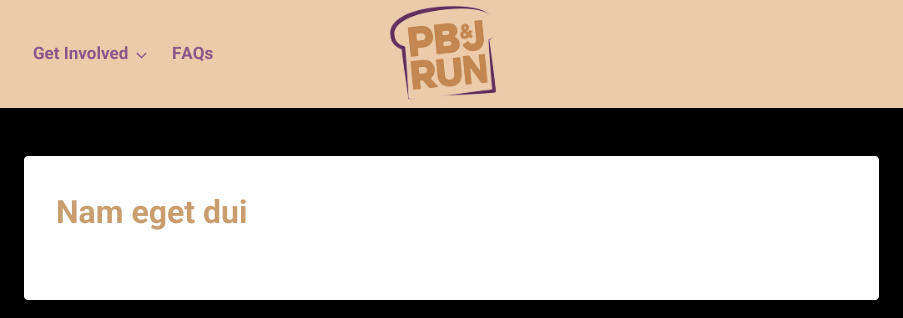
import math
import cairo



def rounded_rect(context, x, y, w, h, r):
    context.new_sub_path()
    for i, (u, v) in enumerate([(x + w - r, y + h - r), (x + r, y + h - r), (x + r, y + r), (x + w - r, y + r)]):
        context.arc(u, v, r, i * math.pi / 2, (i + 1) * math.pi / 2)
    context.close_path()


def draw_image(context, path, x, y, w, h):
    context.save()
    context.set_source_surface(cairo.ImageSurface.create_from_png(path), x, y)
    context.rectangle(x, y, w, h)
    context.fill()
    context.restore()


def draw(context):
    context.set_source_rgb(0, 0, 0)
    context.paint()
    context.set_source_rgb(235 / 255, 203 / 255, 169 / 255)
    context.rectangle(0, 0, 903, 108)
    context.fill()
    draw_image(context, "images/1.png", 136, 52, 11, 7)
    draw_image(context, "images/2.png", 389, 5, 108, 95)
    context.set_source_rgb(1, 1, 1)
    rounded_rect(context, 24, 156, 855, 144, 4)
    context.fill()
    context.select_font_face("Roboto", cairo.FontSlant.NORMAL, cairo.FontWeight.BOLD)
    context.set_font_size(17)
    context.set_source_rgb(140 / 255, 85 / 255, 137 / 255)
    context.move_to(33, 59)
    context.show_text("Get Involved")
    context.move_to(172, 59)
    context.show_text("FAQs")
    context.set_font_size(32)
    context.set_source_rgb(201 / 255, 158 / 255, 111 / 255)
    context.move_to(56, 223)
    context.show_text("Nam eget dui")


surface = cairo.ImageSurface(cairo.Format.RGB24, 903, 318)
context = cairo.Context(surface)
options = cairo.FontOptions()
options.set_hint_metrics(cairo.HintMetrics.OFF)
options.set_hint_style(cairo.HintStyle.NONE)
context.set_font_options(options)
context.set_miter_limit(4)
draw(context)
surface.write_to_png("out.png")
